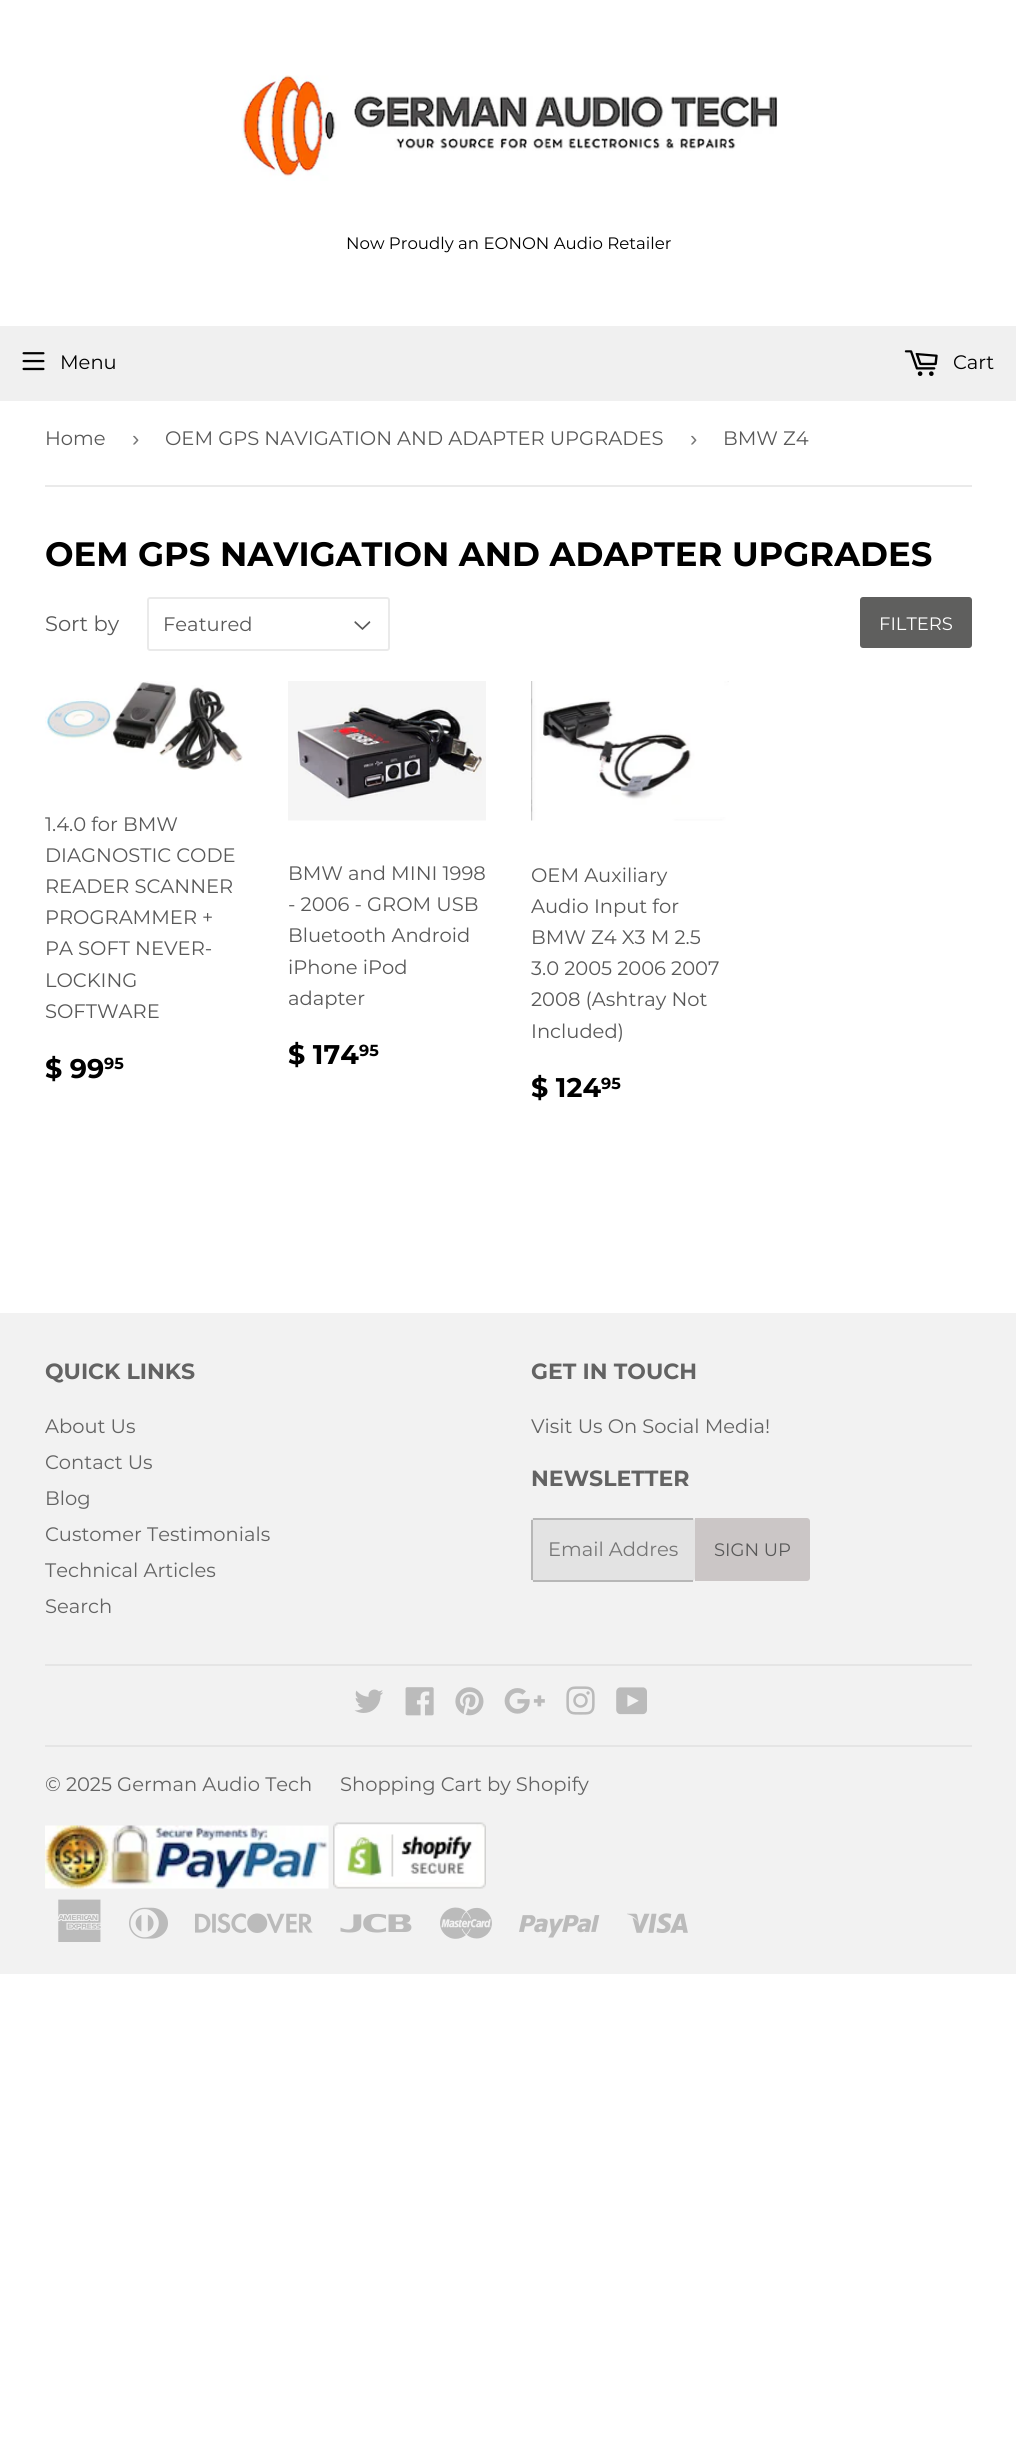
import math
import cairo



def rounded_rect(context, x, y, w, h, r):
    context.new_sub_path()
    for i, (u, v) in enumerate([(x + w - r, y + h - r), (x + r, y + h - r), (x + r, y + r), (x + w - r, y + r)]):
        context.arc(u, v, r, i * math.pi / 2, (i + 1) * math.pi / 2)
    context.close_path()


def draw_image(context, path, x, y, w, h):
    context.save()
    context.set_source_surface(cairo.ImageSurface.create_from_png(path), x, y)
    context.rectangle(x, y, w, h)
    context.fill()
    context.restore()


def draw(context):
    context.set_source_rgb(1, 1, 1)
    context.paint()
    draw_image(context, "images/1.png", 241, 75, 537, 106)
    context.set_source_rgb(240 / 255, 240 / 255, 240 / 255)
    context.rectangle(0, 326, 1016, 75)
    context.fill()
    draw_image(context, "images/2.png", 22, 352, 23, 19)
    draw_image(context, "images/3.png", 904, 350, 34, 26)
    context.set_source_rgb(234 / 255, 234 / 255, 234 / 255)
    context.rectangle(45, 485, 927, 2)
    context.fill()
    draw_image(context, "images/4.png", 354, 621, 17, 9)
    rounded_rect(context, 148, 598, 241, 52, 2)
    context.stroke()
    context.set_source_rgb(95 / 255, 95 / 255, 94 / 255)
    rounded_rect(context, 860, 597, 112, 51, 3)
    context.fill()
    draw_image(context, "images/5.png", 45, 681, 198, 89)
    draw_image(context, "images/6.png", 288, 681, 198, 140)
    draw_image(context, "images/7.png", 531, 681, 198, 140)
    context.set_source_rgb(242 / 255, 242 / 255, 242 / 255)
    context.rectangle(0, 1313, 1016, 661)
    context.fill()
    context.set_source_rgb(227 / 255, 227 / 255, 227 / 255)
    rounded_rect(context, 531, 1518, 164, 63, 3)
    context.fill()
    context.set_source_rgb(183 / 255, 183 / 255, 183 / 255)
    context.rectangle(533, 1518, 160, 2)
    context.fill()
    context.rectangle(533, 1580, 160, 2)
    context.fill()
    context.rectangle(531, 1520, 2, 60)
    context.fill()
    context.set_source_rgb(203 / 255, 198 / 255, 198 / 255)
    context.new_path()
    context.move_to(695, 1518)
    context.line_to(807, 1518)
    context.curve_to(808.5, 1518, 810, 1519.5, 810, 1521)
    context.line_to(810, 1578)
    context.curve_to(810, 1579.5, 808.5, 1581, 807, 1581)
    context.line_to(695, 1581)
    context.close_path()
    context.fill()
    context.set_source_rgb(229 / 255, 229 / 255, 229 / 255)
    context.rectangle(45, 1664, 927, 2)
    context.fill()
    draw_image(context, "images/8.png", 354, 1689, 29, 24)
    draw_image(context, "images/9.png", 405, 1687, 29, 29)
    draw_image(context, "images/10.png", 455, 1687, 29, 29)
    draw_image(context, "images/11.png", 504, 1688, 41, 26)
    draw_image(context, "images/12.png", 566, 1686, 29, 29)
    draw_image(context, "images/13.png", 616, 1687, 31, 28)
    context.rectangle(45, 1745, 927, 2)
    context.fill()
    draw_image(context, "images/14.png", 45, 1825, 284, 64)
    draw_image(context, "images/15.png", 333, 1822, 153, 67)
    draw_image(context, "images/16.png", 58, 1899, 43, 43)
    draw_image(context, "images/17.png", 129, 1907, 39, 32)
    draw_image(context, "images/18.png", 195, 1913, 118, 20)
    draw_image(context, "images/19.png", 340, 1913, 72, 20)
    draw_image(context, "images/20.png", 440, 1907, 52, 32)
    draw_image(context, "images/21.png", 519, 1915, 81, 23)
    draw_image(context, "images/22.png", 627, 1913, 61, 20)
    context.select_font_face("Montserrat")
    context.set_font_size(16.6)
    context.set_source_rgb(0, 0, 0)
    context.move_to(346, 249)
    context.show_text("Now Proudly an EONON Audio Retailer")
    context.set_font_size(19.5)
    context.move_to(60, 369)
    context.show_text("Menu")
    context.move_to(953, 369)
    context.show_text("Cart")
    context.set_source_rgb(88 / 255, 88 / 255, 88 / 255)
    context.move_to(45, 445)
    context.show_text("Home")
    context.select_font_face("Liberation Sans")
    context.set_font_size(22)
    context.set_source_rgb(118 / 255, 118 / 255, 118 / 255)
    context.move_to(132, 446)
    context.show_text("›")
    context.select_font_face("Montserrat")
    context.set_font_size(19.5)
    context.set_source_rgb(88 / 255, 88 / 255, 88 / 255)
    context.move_to(165, 445)
    context.show_text("OEM GPS NAVIGATION AND ADAPTER UPGRADES")
    context.select_font_face("Liberation Sans")
    context.set_font_size(22)
    context.set_source_rgb(118 / 255, 118 / 255, 118 / 255)
    context.move_to(690, 446)
    context.show_text("›")
    context.select_font_face("Montserrat")
    context.set_font_size(19.5)
    context.set_source_rgb(88 / 255, 88 / 255, 88 / 255)
    context.move_to(723, 445)
    context.show_text("BMW Z4")
    context.select_font_face("Montserrat", cairo.FontSlant.NORMAL, cairo.FontWeight.BOLD)
    context.set_font_size(33.8)
    context.set_source_rgb(0, 0, 0)
    context.move_to(45, 566)
    context.show_text("OEM GPS NAVIGATION AND ADAPTER UPGRADES")
    context.select_font_face("Montserrat")
    context.set_font_size(21)
    context.set_source_rgb(88 / 255, 88 / 255, 88 / 255)
    context.move_to(45, 631)
    context.show_text("Sort by")
    context.set_font_size(19.5)
    context.move_to(163, 631)
    context.show_text("Featured")
    context.set_font_size(18)
    context.set_source_rgb(1, 1, 1)
    context.move_to(879, 630)
    context.show_text("FILTERS")
    context.set_font_size(19.5)
    context.set_source_rgb(88 / 255, 88 / 255, 88 / 255)
    context.move_to(45, 831)
    context.show_text("1.4.0 for BMW")
    context.move_to(45, 862)
    context.show_text("DIAGNOSTIC CODE")
    context.move_to(45, 893)
    context.show_text("READER SCANNER")
    context.move_to(45, 924)
    context.show_text("PROGRAMMER +")
    context.move_to(45, 955)
    context.show_text("PA SOFT NEVER-")
    context.move_to(45, 987)
    context.show_text("LOCKING")
    context.move_to(45, 1018)
    context.show_text("SOFTWARE")
    context.select_font_face("Montserrat", cairo.FontSlant.NORMAL, cairo.FontWeight.BOLD)
    context.set_font_size(27)
    context.set_source_rgb(0, 0, 0)
    context.move_to(45, 1078)
    context.show_text("$ 99")
    context.set_font_size(16)
    context.move_to(104, 1069)
    context.show_text("95")
    context.select_font_face("Montserrat")
    context.set_font_size(19.5)
    context.set_source_rgb(88 / 255, 88 / 255, 88 / 255)
    context.move_to(288, 880)
    context.show_text("BMW and MINI 1998")
    context.move_to(288, 911)
    context.show_text("- 2006 - GROM USB")
    context.move_to(288, 942)
    context.show_text("Bluetooth Android")
    context.move_to(288, 974)
    context.show_text("iPhone iPod")
    context.move_to(288, 1005)
    context.show_text("adapter")
    context.select_font_face("Montserrat", cairo.FontSlant.NORMAL, cairo.FontWeight.BOLD)
    context.set_font_size(27)
    context.set_source_rgb(0, 0, 0)
    context.move_to(288, 1064)
    context.show_text("$ 174")
    context.set_font_size(16)
    context.move_to(359, 1056)
    context.show_text("95")
    context.select_font_face("Montserrat")
    context.set_font_size(19.5)
    context.set_source_rgb(88 / 255, 88 / 255, 88 / 255)
    context.move_to(531, 882)
    context.show_text("OEM Auxiliary")
    context.move_to(531, 913)
    context.show_text("Audio Input for")
    context.move_to(531, 944)
    context.show_text("BMW Z4 X3 M 2.5")
    context.move_to(531, 975)
    context.show_text("3.0 2005 2006 2007")
    context.move_to(531, 1006)
    context.show_text("2008 (Ashtray Not")
    context.move_to(531, 1038)
    context.show_text("Included)")
    context.select_font_face("Montserrat", cairo.FontSlant.NORMAL, cairo.FontWeight.BOLD)
    context.set_font_size(27)
    context.set_source_rgb(0, 0, 0)
    context.move_to(531, 1097)
    context.show_text("$ 124")
    context.set_font_size(16)
    context.move_to(601, 1089)
    context.show_text("95")
    context.set_font_size(22)
    context.set_source_rgb(99 / 255, 99 / 255, 99 / 255)
    context.move_to(45, 1379)
    context.show_text("QUICK LINKS")
    context.select_font_face("Montserrat")
    context.set_font_size(19.5)
    context.move_to(45, 1433)
    context.show_text("About Us")
    context.move_to(45, 1469)
    context.show_text("Contact Us")
    context.move_to(45, 1505)
    context.show_text("Blog")
    context.move_to(45, 1541)
    context.show_text("Customer Testimonials")
    context.move_to(45, 1577)
    context.show_text("Technical Articles")
    context.move_to(45, 1613)
    context.show_text("Search")
    context.select_font_face("Montserrat", cairo.FontSlant.NORMAL, cairo.FontWeight.BOLD)
    context.set_font_size(22)
    context.move_to(531, 1379)
    context.show_text("GET IN TOUCH")
    context.select_font_face("Montserrat")
    context.set_font_size(19.5)
    context.move_to(531, 1433)
    context.show_text("Visit Us On Social Media!")
    context.select_font_face("Montserrat", cairo.FontSlant.NORMAL, cairo.FontWeight.BOLD)
    context.set_font_size(22)
    context.move_to(531, 1486)
    context.show_text("NEWSLETTER")
    context.select_font_face("Montserrat")
    context.set_font_size(19.5)
    context.set_source_rgb(118 / 255, 118 / 255, 118 / 255)
    context.move_to(548, 1556)
    context.show_text("Email Addres")
    context.set_font_size(18)
    context.set_source_rgb(88 / 255, 88 / 255, 88 / 255)
    context.move_to(714, 1556)
    context.show_text("SIGN UP")
    context.set_font_size(19.5)
    context.set_source_rgb(99 / 255, 99 / 255, 99 / 255)
    context.move_to(45, 1791)
    context.show_text("© 2025 German Audio Tech")
    context.move_to(340, 1791)
    context.show_text("Shopping Cart by Shopify")


surface = cairo.ImageSurface(cairo.Format.RGB24, 1016, 2450)
context = cairo.Context(surface)
options = cairo.FontOptions()
options.set_hint_metrics(cairo.HintMetrics.OFF)
options.set_hint_style(cairo.HintStyle.NONE)
context.set_font_options(options)
context.set_miter_limit(4)
draw(context)
surface.write_to_png("out.png")
